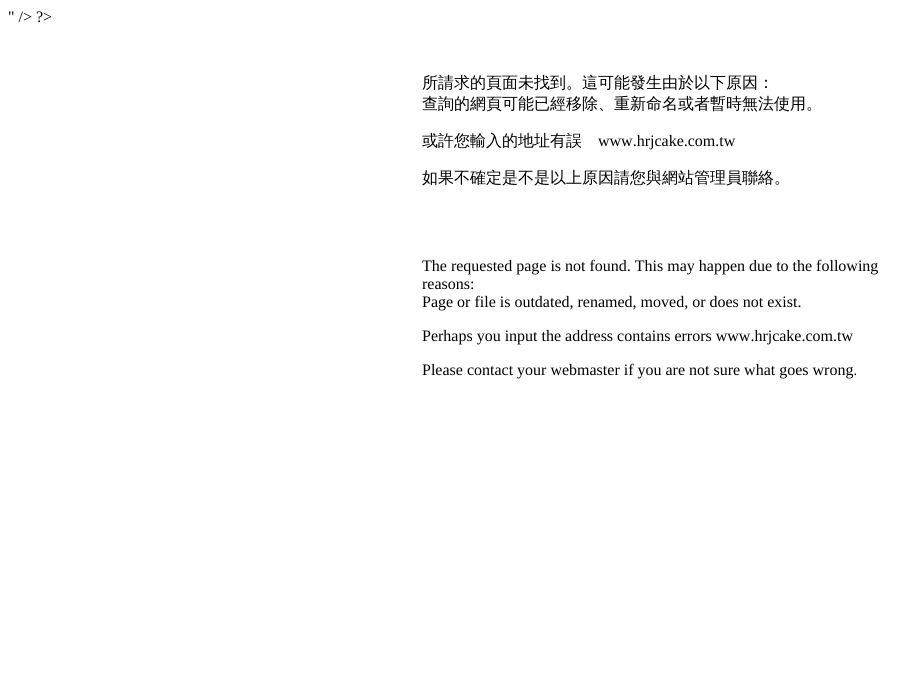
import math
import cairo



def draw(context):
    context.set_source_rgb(1, 1, 1)
    context.paint()
    context.select_font_face("Liberation Serif")
    context.set_font_size(16)
    context.set_source_rgb(0, 0, 0)
    context.move_to(8, 22)
    context.show_text("\" /> ?>")
    context.select_font_face("WenQuanYi Zen Hei Medium")
    context.move_to(422, 88)
    context.show_text("所請求的頁面未找到。這可能發生由於以下原因：")
    context.move_to(422, 109)
    context.show_text("查詢的網頁可能已經移除、重新命名或者暫時無法使用。")
    context.move_to(422, 146)
    context.show_text("或許您輸入的地址有誤")
    context.select_font_face("Liberation Serif")
    context.move_to(598, 146)
    context.show_text("www.hrjcake.com.tw")
    context.select_font_face("WenQuanYi Zen Hei Medium")
    context.move_to(422, 183)
    context.show_text("如果不確定是不是以上原因請您與網站管理員聯絡。")
    context.select_font_face("Liberation Serif")
    context.move_to(422, 271)
    context.show_text("The requested page is not found. This may happen due to the following")
    context.move_to(422, 289)
    context.show_text("reasons:")
    context.move_to(422, 307)
    context.show_text("Page or file is outdated, renamed, moved, or does not exist.")
    context.move_to(422, 341)
    context.show_text("Perhaps you input the address contains errors www.hrjcake.com.tw")
    context.move_to(422, 375)
    context.show_text("Please contact your webmaster if you are not sure what goes wrong.")


surface = cairo.ImageSurface(cairo.Format.RGB24, 918, 674)
context = cairo.Context(surface)
options = cairo.FontOptions()
options.set_hint_metrics(cairo.HintMetrics.OFF)
options.set_hint_style(cairo.HintStyle.NONE)
context.set_font_options(options)
context.set_miter_limit(4)
draw(context)
surface.write_to_png("out.png")
